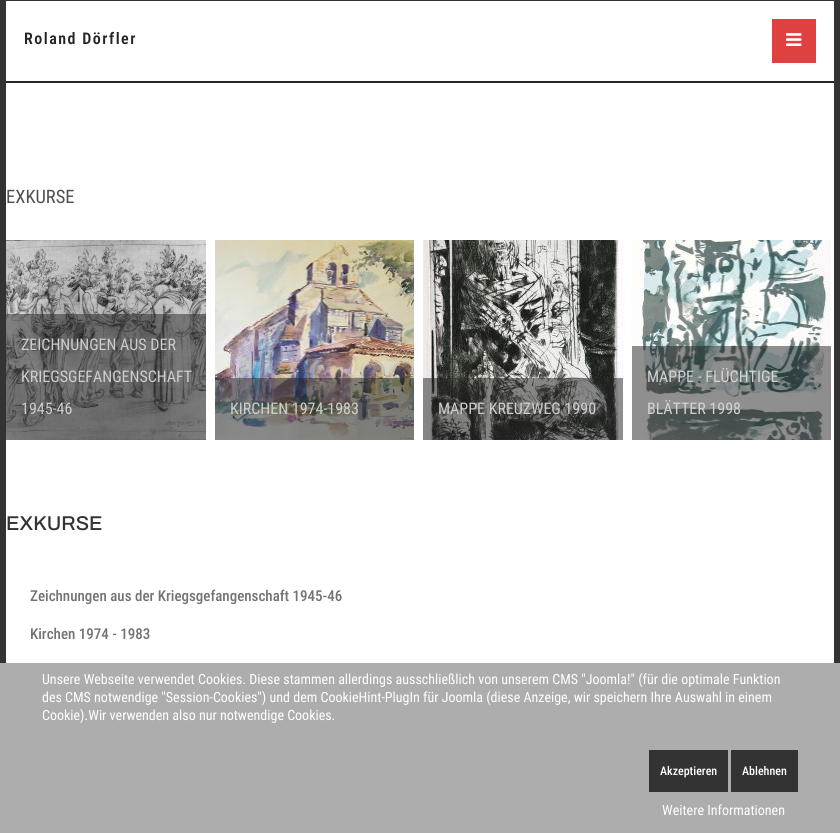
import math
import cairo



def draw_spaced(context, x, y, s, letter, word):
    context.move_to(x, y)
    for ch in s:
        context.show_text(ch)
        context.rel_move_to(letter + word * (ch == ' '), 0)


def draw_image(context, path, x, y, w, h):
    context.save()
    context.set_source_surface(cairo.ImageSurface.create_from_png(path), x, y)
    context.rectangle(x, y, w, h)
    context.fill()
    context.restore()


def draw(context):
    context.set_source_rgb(51 / 255, 51 / 255, 51 / 255)
    context.paint()
    context.set_source_rgb(1, 1, 1)
    context.rectangle(6, 1, 828, 662)
    context.fill()
    context.set_source_rgb(37 / 255, 37 / 255, 37 / 255)
    context.rectangle(6, 81, 828, 2)
    context.fill()
    context.set_source_rgb(223 / 255, 64 / 255, 64 / 255)
    context.rectangle(772, 19, 44, 44)
    context.fill()
    draw_image(context, "images/1.png", 786, 33, 16, 13)
    draw_image(context, "images/2.png", 6, 240, 200, 200)
    context.set_source_rgba(34 / 255, 34 / 255, 34 / 255, 0.5)
    context.rectangle(6, 314, 200, 126)
    context.fill()
    draw_image(context, "images/3.png", 215, 240, 199, 200)
    context.rectangle(215, 378, 199, 62)
    context.fill()
    draw_image(context, "images/4.png", 423, 240, 200, 200)
    context.rectangle(423, 378, 200, 62)
    context.fill()
    draw_image(context, "images/5.png", 632, 240, 199, 200)
    context.rectangle(632, 346, 199, 94)
    context.fill()
    context.set_source_rgb(173 / 255, 173 / 255, 173 / 255)
    context.rectangle(0, 663, 840, 170)
    context.fill()
    context.set_source_rgb(51 / 255, 51 / 255, 51 / 255)
    context.rectangle(649, 750, 79, 42)
    context.fill()
    context.rectangle(731, 750, 67, 42)
    context.fill()
    context.select_font_face("Roboto Condensed SemiBold")
    context.set_font_size(16)
    context.set_source_rgb(37 / 255, 37 / 255, 37 / 255)
    draw_spaced(context, 24, 44, "Roland Dörfler", 1.5, 0)
    context.select_font_face("Roboto Condensed")
    context.set_font_size(18.5)
    context.set_source_rgb(79 / 255, 79 / 255, 79 / 255)
    context.move_to(6, 203)
    context.show_text("EXKURSE")
    context.set_font_size(16)
    context.set_source_rgb(206 / 255, 206 / 255, 206 / 255)
    context.move_to(21, 350)
    context.show_text("ZEICHNUNGEN AUS DER")
    context.move_to(21, 382)
    context.show_text("KRIEGSGEFANGENSCHAFT")
    context.move_to(21, 414)
    context.show_text("1945-46")
    context.move_to(230, 414)
    context.show_text("KIRCHEN 1974-1983")
    context.move_to(438, 414)
    context.show_text("MAPPE KREUZWEG 1990")
    context.set_source_rgb(210 / 255, 212 / 255, 212 / 255)
    context.move_to(647, 382)
    context.show_text("MAPPE - FLÜCHTIGE")
    context.move_to(647, 414)
    context.show_text("BLÄTTER 1998")
    context.select_font_face("Archivo Medium")
    context.set_font_size(20)
    context.set_source_rgb(51 / 255, 51 / 255, 51 / 255)
    context.move_to(6, 530)
    context.show_text("EXKURSE")
    context.select_font_face("Roboto Condensed Medium")
    context.set_font_size(15)
    context.set_source_rgb(115 / 255, 115 / 255, 115 / 255)
    context.move_to(30, 601)
    context.show_text("Zeichnungen aus der Kriegsgefangenschaft 1945-46")
    context.move_to(30, 639)
    context.show_text("Kirchen 1974 - 1983")
    context.select_font_face("Roboto Condensed")
    context.set_font_size(14)
    context.set_source_rgb(1, 1, 1)
    context.move_to(42, 684)
    context.show_text("Unsere Webseite verwendet Cookies. Diese stammen allerdings ausschließlich von unserem CMS \"Joomla!\" (für die optimale Funktion")
    context.move_to(42, 702)
    context.show_text("des CMS notwendige \"Session-Cookies\") und dem CookieHint-PlugIn für Joomla (diese Anzeige, wir speichern Ihre Auswahl in einem")
    context.move_to(42, 720)
    context.show_text("Cookie).Wir verwenden also nur notwendige Cookies.")
    context.select_font_face("Roboto Condensed Medium")
    context.set_font_size(12)
    context.move_to(660, 775)
    context.show_text("Akzeptieren")
    context.move_to(742, 775)
    context.show_text("Ablehnen")
    context.select_font_face("Roboto Condensed")
    context.set_font_size(14)
    context.move_to(662, 815)
    context.show_text("Weitere Informationen")


surface = cairo.ImageSurface(cairo.Format.RGB24, 840, 833)
context = cairo.Context(surface)
options = cairo.FontOptions()
options.set_hint_metrics(cairo.HintMetrics.OFF)
options.set_hint_style(cairo.HintStyle.NONE)
context.set_font_options(options)
context.set_miter_limit(4)
draw(context)
surface.write_to_png("out.png")
